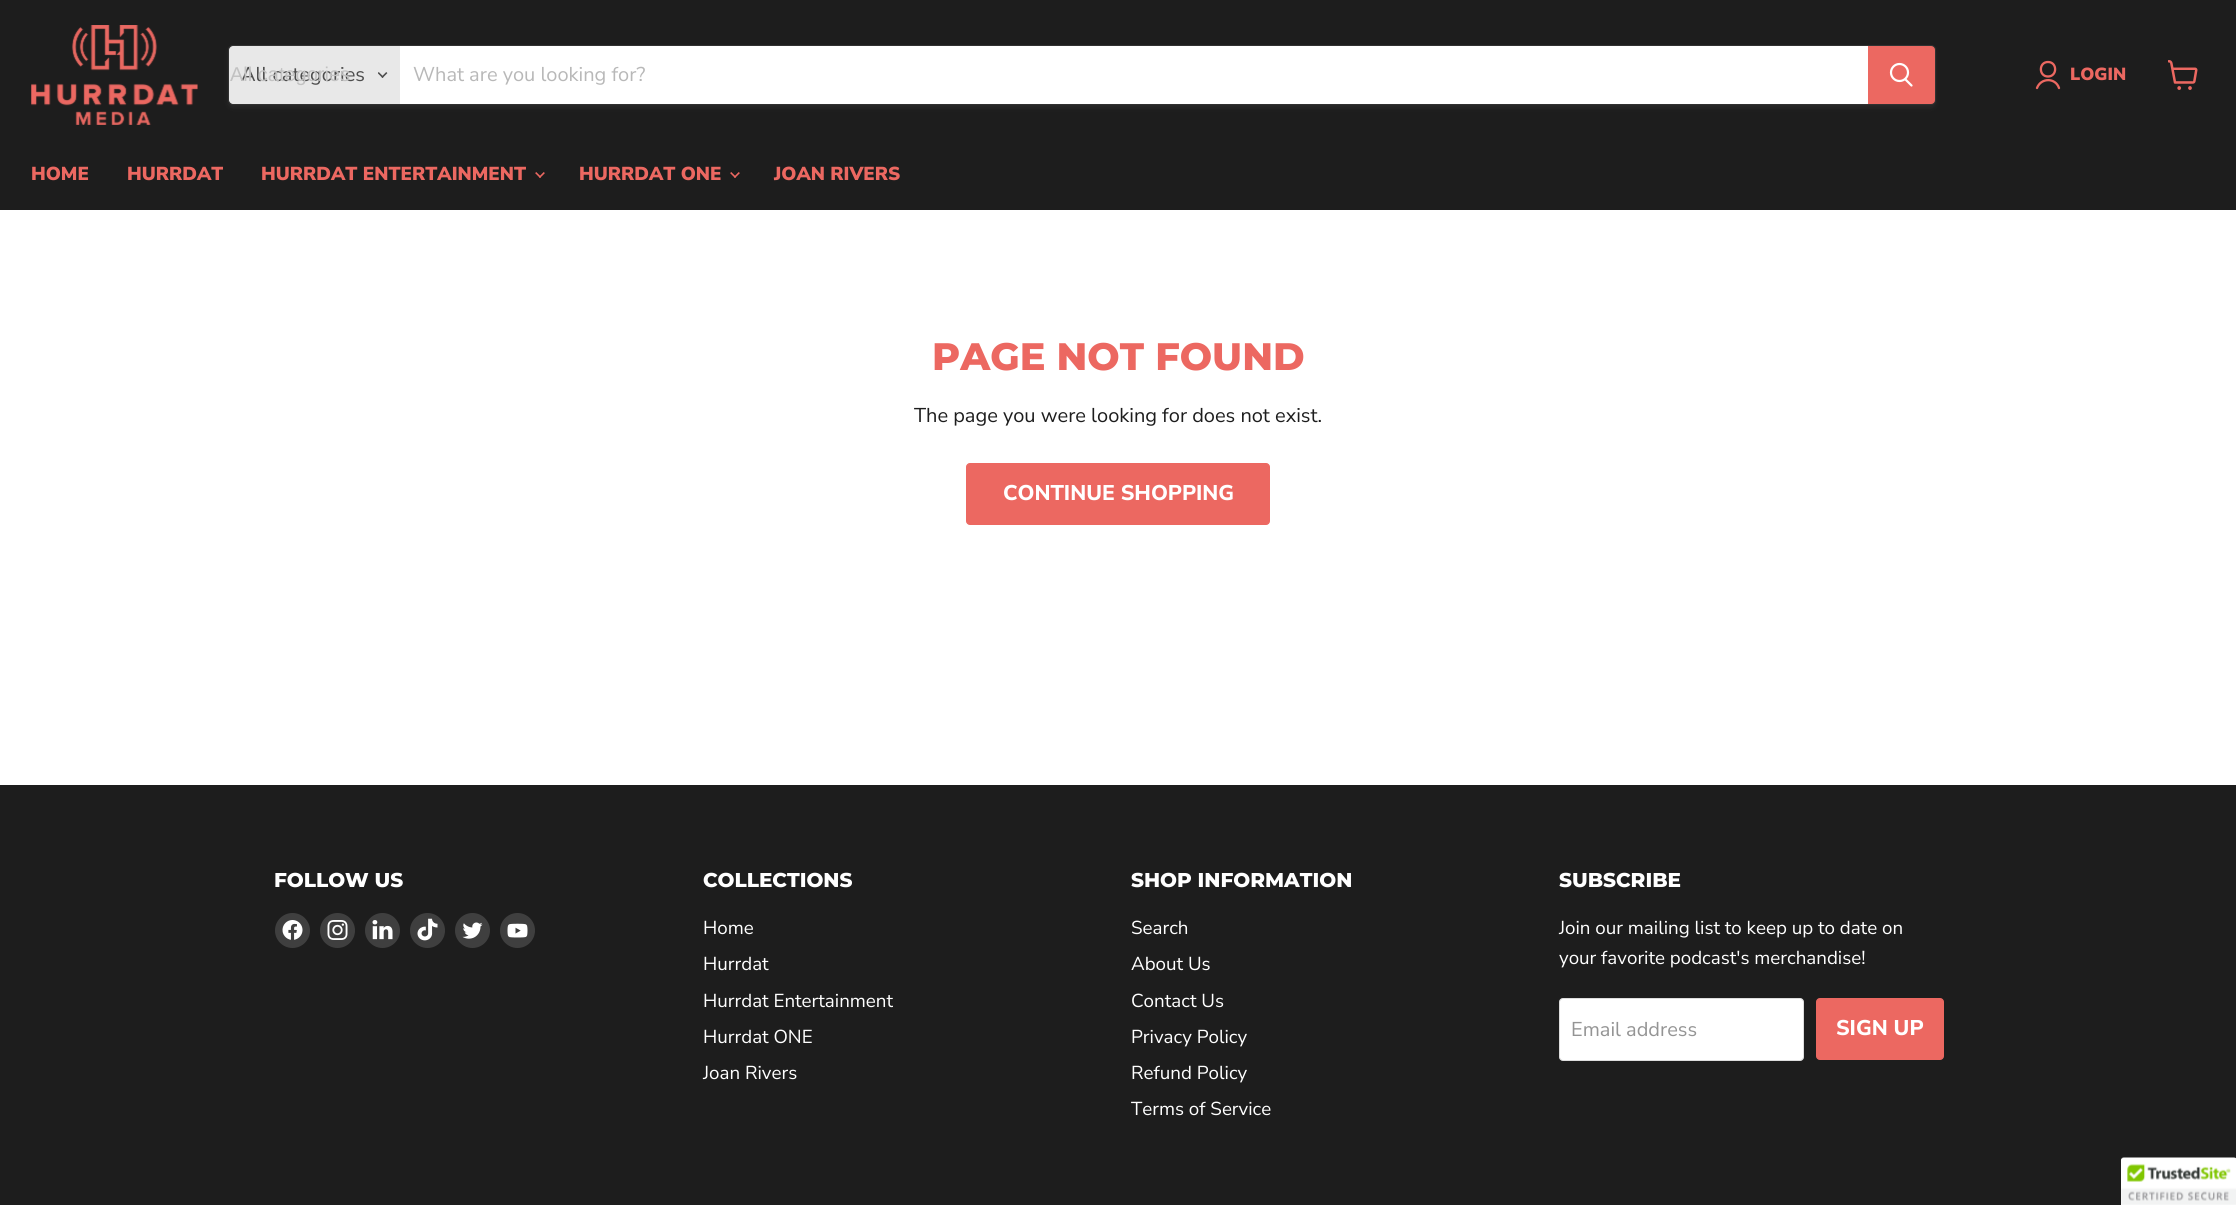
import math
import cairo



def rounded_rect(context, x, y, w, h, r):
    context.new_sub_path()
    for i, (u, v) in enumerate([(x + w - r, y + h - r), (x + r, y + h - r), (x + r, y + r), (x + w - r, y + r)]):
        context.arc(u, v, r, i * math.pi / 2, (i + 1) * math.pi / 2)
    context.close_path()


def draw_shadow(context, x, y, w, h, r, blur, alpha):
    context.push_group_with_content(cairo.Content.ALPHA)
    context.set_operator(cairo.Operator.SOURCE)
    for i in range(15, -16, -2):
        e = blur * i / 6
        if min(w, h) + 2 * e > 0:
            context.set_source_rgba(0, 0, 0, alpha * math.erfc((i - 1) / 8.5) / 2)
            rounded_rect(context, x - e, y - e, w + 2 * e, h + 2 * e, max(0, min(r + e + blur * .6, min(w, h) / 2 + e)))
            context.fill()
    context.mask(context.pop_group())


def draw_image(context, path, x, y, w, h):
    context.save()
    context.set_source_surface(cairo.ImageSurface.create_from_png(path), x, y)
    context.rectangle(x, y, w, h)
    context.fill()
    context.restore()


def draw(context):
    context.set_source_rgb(1, 1, 1)
    context.paint()
    context.set_source_rgb(29 / 255, 29 / 255, 29 / 255)
    context.rectangle(0, 0, 2236, 210)
    context.fill()
    draw_image(context, "images/1.png", 31, 25, 167, 100)
    context.set_source_rgb(128 / 255, 128 / 255, 128 / 255)
    draw_shadow(context, 228, 48, 1708, 60, 5, 2, 0.11)
    rounded_rect(context, 228.5, 45.5, 1707, 59, 4.5)
    context.set_source_rgb(49 / 255, 49 / 255, 49 / 255)
    context.set_line_width(1)
    context.stroke()
    context.set_source_rgb(232 / 255, 232 / 255, 232 / 255)
    context.new_path()
    context.move_to(233, 46)
    context.line_to(400, 46)
    context.line_to(400, 104)
    context.line_to(233, 104)
    context.curve_to(231, 104, 229, 102, 229, 100)
    context.line_to(229, 50)
    context.curve_to(229, 48, 231, 46, 233, 46)
    context.close_path()
    context.fill()
    draw_image(context, "images/2.png", 378, 72, 10, 6)
    context.set_source_rgb(1, 1, 1)
    context.rectangle(400, 46, 1468, 58)
    context.fill()
    context.set_source_rgb(236 / 255, 104 / 255, 97 / 255)
    context.new_path()
    context.move_to(1868.5, 46.5)
    context.line_to(1931, 46.5)
    context.curve_to(1933, 46.5, 1934.5, 48, 1934.5, 50)
    context.line_to(1934.5, 100)
    context.curve_to(1934.5, 102, 1933, 103.5, 1931, 103.5)
    context.line_to(1868.5, 103.5)
    context.close_path()
    context.fill_preserve()
    context.stroke()
    context.new_path()
    context.move_to(1911.5, 85.5)
    context.line_to(1905.5, 79.5)
    context.set_source_rgb(1, 1, 1)
    context.set_line_width(2.2)
    context.set_line_cap(cairo.LineCap.ROUND)
    context.stroke()
    context.arc(1899.5, 72.5, 8.5, 0, 2 * math.pi)
    context.set_line_cap(cairo.LineCap.BUTT)
    context.stroke()
    context.new_path()
    context.move_to(2048, 76.5)
    context.curve_to(2057.5, 76.5, 2057.5, 62, 2048, 62)
    context.curve_to(2038.5, 62, 2038.5, 76.5, 2048, 76.5)
    context.close_path()
    context.move_to(2059, 88)
    context.curve_to(2055.5, 77.5, 2041, 77.5, 2037, 88)
    context.set_source_rgb(236 / 255, 104 / 255, 97 / 255)
    context.set_line_width(2.3)
    context.set_line_cap(cairo.LineCap.ROUND)
    context.set_line_join(cairo.LineJoin.ROUND)
    context.stroke()
    draw_image(context, "images/3.png", 2168, 60, 30, 30)
    draw_image(context, "images/4.png", 535, 172, 10, 6)
    draw_image(context, "images/4.png", 730, 172, 10, 6)
    rounded_rect(context, 966.5, 463.5, 303, 61, 3.5)
    context.fill_preserve()
    context.set_line_width(1)
    context.set_line_cap(cairo.LineCap.BUTT)
    context.set_line_join(cairo.LineJoin.MITER)
    context.stroke()
    context.set_source_rgb(29 / 255, 29 / 255, 29 / 255)
    context.rectangle(0, 785, 2236, 420)
    context.fill()
    context.set_source_rgb(63 / 255, 63 / 255, 63 / 255)
    context.arc(292.5, 930.5, 17.5, 0, 2 * math.pi)
    context.fill()
    draw_image(context, "images/5.png", 282, 920, 21, 20)
    context.arc(337.5, 930.5, 17.5, 0, 2 * math.pi)
    context.fill()
    draw_image(context, "images/6.png", 327, 920, 21, 20)
    context.arc(382.5, 930.5, 17.5, 0, 2 * math.pi)
    context.fill()
    draw_image(context, "images/7.png", 372, 920, 21, 20)
    context.arc(427.5, 930.5, 17.5, 0, 2 * math.pi)
    context.fill()
    draw_image(context, "images/8.png", 417, 918, 21, 23)
    context.arc(472.5, 930.5, 17.5, 0, 2 * math.pi)
    context.fill()
    draw_image(context, "images/9.png", 462, 922, 21, 17)
    context.arc(517.5, 930.5, 17.5, 0, 2 * math.pi)
    context.fill()
    draw_image(context, "images/10.png", 507, 923, 21, 15)
    context.set_source_rgb(1, 1, 1)
    rounded_rect(context, 1559.5, 998.5, 244, 62, 3.5)
    context.fill_preserve()
    context.set_source_rgb(221 / 255, 221 / 255, 221 / 255)
    context.stroke()
    context.set_source_rgb(236 / 255, 104 / 255, 97 / 255)
    rounded_rect(context, 1816.5, 998.5, 127, 61, 3.5)
    context.fill_preserve()
    context.stroke()
    context.set_source_rgb(1, 1, 1)
    context.new_path()
    context.move_to(2123.5, 1158)
    context.line_to(2236, 1158)
    context.line_to(2236, 1205)
    context.line_to(2121, 1205)
    context.line_to(2121, 1160.5)
    context.curve_to(2121, 1159, 2122, 1158, 2123.5, 1158)
    context.close_path()
    context.fill()
    draw_image(context, "images/11.png", 2121, 1157, 115, 48)
    context.select_font_face("Nunito Sans")
    context.set_font_size(20)
    context.set_source_rgb(77 / 255, 77 / 255, 77 / 255)
    context.move_to(241, 81)
    context.show_text("All categories")
    context.select_font_face("Liberation Sans")
    context.set_source_rgb(194 / 255, 194 / 255, 194 / 255)
    context.move_to(230, 81)
    context.show_text("All categories")
    context.select_font_face("Nunito Sans")
    context.set_source_rgb(184 / 255, 184 / 255, 184 / 255)
    context.move_to(413, 81)
    context.show_text("What are you looking for?")
    context.select_font_face("Nunito Sans Black")
    context.set_font_size(17.5)
    context.set_source_rgb(236 / 255, 104 / 255, 97 / 255)
    context.move_to(2070, 80)
    context.show_text("LOGIN")
    context.set_font_size(18.75)
    context.move_to(31, 180)
    context.show_text("HOME")
    context.move_to(127, 180)
    context.show_text("HURRDAT")
    context.move_to(261, 180)
    context.show_text("HURRDAT ENTERTAINMENT")
    context.move_to(579, 180)
    context.show_text("HURRDAT ONE")
    context.move_to(774, 180)
    context.show_text("JOAN RIVERS")
    context.select_font_face("Montserrat ExtraBold")
    context.set_font_size(38.25)
    context.move_to(932, 370)
    context.show_text("PAGE NOT FOUND")
    context.select_font_face("Nunito Sans")
    context.set_font_size(20)
    context.set_source_rgb(29 / 255, 29 / 255, 29 / 255)
    context.move_to(914, 422)
    context.show_text("The page you were looking for does not exist.")
    context.select_font_face("Nunito Sans ExtraBold")
    context.set_font_size(21.25)
    context.set_source_rgb(1, 1, 1)
    context.move_to(1003, 500)
    context.show_text("CONTINUE SHOPPING")
    context.select_font_face("Montserrat ExtraBold")
    context.set_font_size(20)
    context.move_to(274, 887)
    context.show_text("FOLLOW US")
    context.move_to(703, 887)
    context.show_text("COLLECTIONS")
    context.select_font_face("Nunito Sans")
    context.set_font_size(18.75)
    context.move_to(703, 934)
    context.show_text("Home")
    context.move_to(703, 970)
    context.show_text("Hurrdat")
    context.move_to(703, 1007)
    context.show_text("Hurrdat Entertainment")
    context.move_to(703, 1043)
    context.show_text("Hurrdat ONE")
    context.move_to(703, 1079)
    context.show_text("Joan Rivers")
    context.select_font_face("Montserrat ExtraBold")
    context.set_font_size(20)
    context.move_to(1131, 887)
    context.show_text("SHOP INFORMATION")
    context.select_font_face("Nunito Sans")
    context.set_font_size(18.75)
    context.move_to(1131, 934)
    context.show_text("Search")
    context.move_to(1131, 970)
    context.show_text("About Us")
    context.move_to(1131, 1007)
    context.show_text("Contact Us")
    context.move_to(1131, 1043)
    context.show_text("Privacy Policy")
    context.move_to(1131, 1079)
    context.show_text("Refund Policy")
    context.move_to(1131, 1115)
    context.show_text("Terms of Service")
    context.select_font_face("Montserrat ExtraBold")
    context.set_font_size(20)
    context.move_to(1559, 887)
    context.show_text("SUBSCRIBE")
    context.select_font_face("Nunito Sans")
    context.set_font_size(18.75)
    context.move_to(1559, 934)
    context.show_text("Join our mailing list to keep up to date on")
    context.move_to(1559, 964)
    context.show_text("your favorite podcast's merchandise!")
    context.set_font_size(20)
    context.set_source_rgb(148 / 255, 148 / 255, 148 / 255)
    context.move_to(1571, 1036)
    context.show_text("Email address")
    context.select_font_face("Nunito Sans ExtraBold")
    context.set_font_size(21.25)
    context.set_source_rgb(1, 1, 1)
    context.move_to(1836, 1035)
    context.show_text("SIGN UP")


surface = cairo.ImageSurface(cairo.Format.RGB24, 2236, 1205)
context = cairo.Context(surface)
options = cairo.FontOptions()
options.set_hint_metrics(cairo.HintMetrics.OFF)
options.set_hint_style(cairo.HintStyle.NONE)
context.set_font_options(options)
context.set_miter_limit(4)
draw(context)
surface.write_to_png("out.png")
